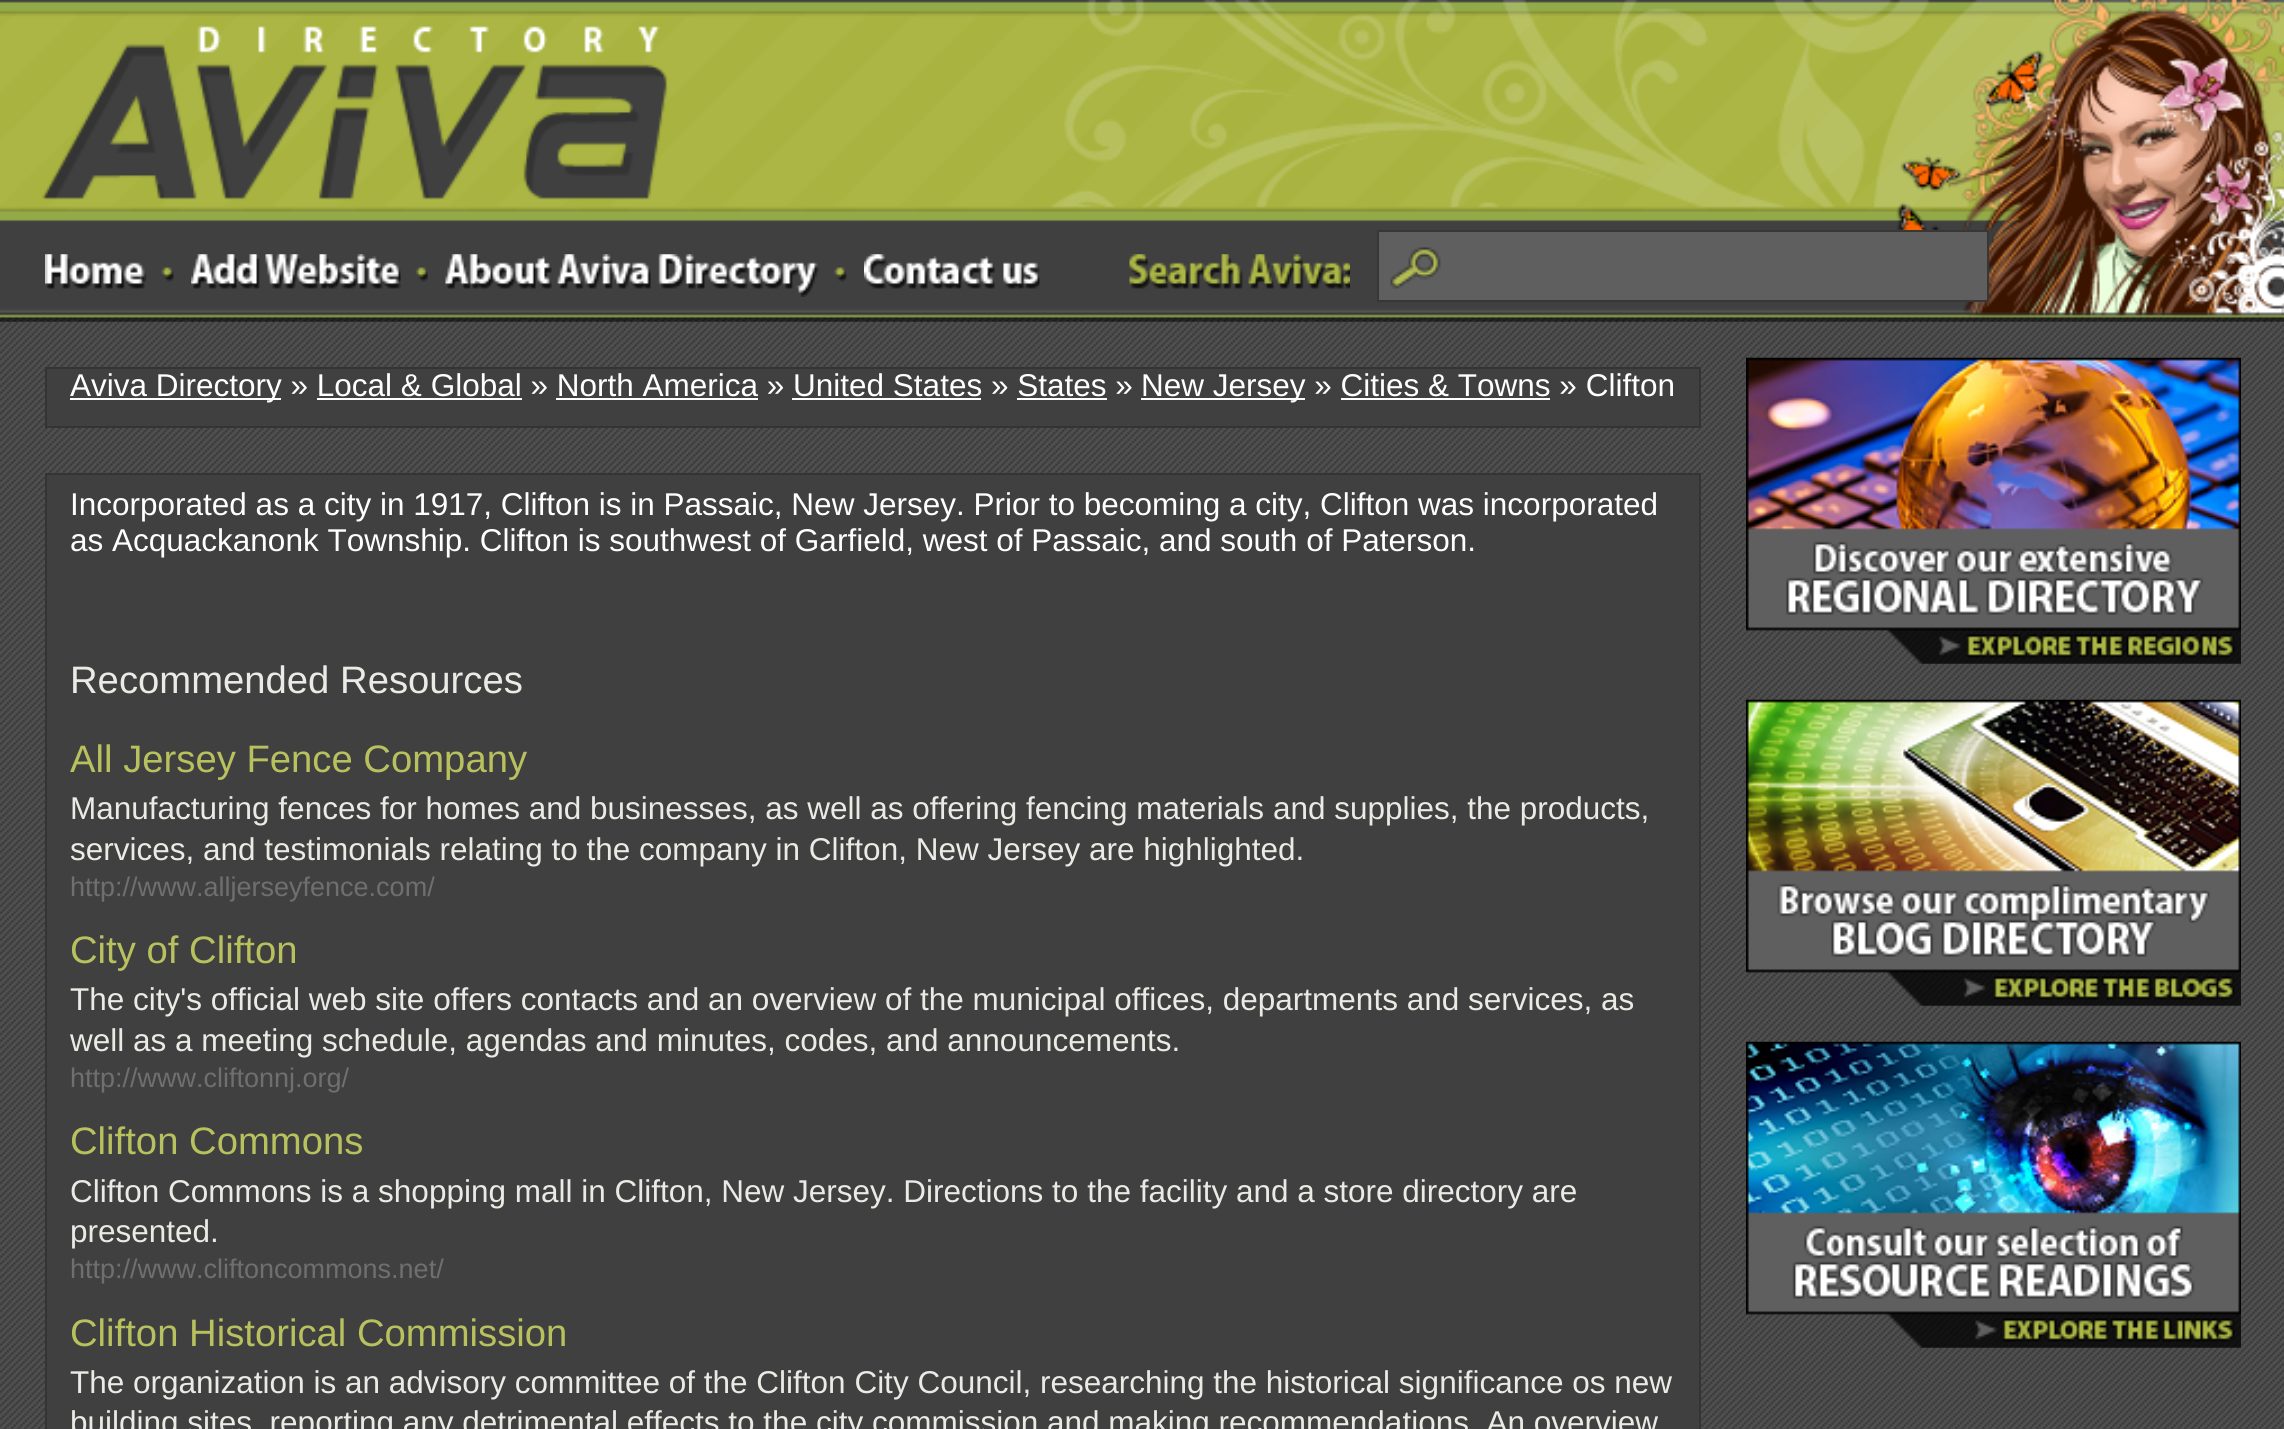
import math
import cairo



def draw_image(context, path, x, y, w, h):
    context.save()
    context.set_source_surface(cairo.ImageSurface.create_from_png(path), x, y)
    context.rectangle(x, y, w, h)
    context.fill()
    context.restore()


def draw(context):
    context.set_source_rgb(1, 1, 1)
    context.paint()
    draw_image(context, "images/1.png", 0, 321, 2284, 1108)
    draw_image(context, "images/2.png", 0, 0, 2284, 322)
    draw_image(context, "images/3.png", 42, 26, 626, 174)
    draw_image(context, "images/4.png", 1051, 0, 1233, 317)
    draw_image(context, "images/5.png", 45, 254, 102, 35)
    draw_image(context, "images/6.png", 161, 267, 13, 15)
    draw_image(context, "images/7.png", 191, 254, 210, 35)
    draw_image(context, "images/8.png", 415, 267, 13, 15)
    draw_image(context, "images/9.png", 445, 254, 374, 43)
    draw_image(context, "images/10.png", 834, 267, 13, 15)
    draw_image(context, "images/11.png", 864, 254, 176, 35)
    draw_image(context, "images/12.png", 1129, 254, 221, 35)
    context.set_source_rgb(95 / 255, 95 / 255, 95 / 255)
    context.rectangle(1379, 232, 608, 68)
    context.fill()
    draw_image(context, "images/13.png", 1390, 247, 51, 42)
    context.rectangle(1378, 231, 610, 70)
    context.set_source_rgb(55 / 255, 55 / 255, 55 / 255)
    context.stroke()
    context.set_source_rgb(64 / 255, 64 / 255, 64 / 255)
    context.rectangle(46, 368, 1654, 59)
    context.fill_preserve()
    context.set_source_rgb(52 / 255, 52 / 255, 52 / 255)
    context.stroke()
    context.set_source_rgb(1, 1, 1)
    context.rectangle(70, 398, 211, 2)
    context.fill()
    context.rectangle(1141, 398, 164, 2)
    context.fill()
    context.rectangle(317, 398, 205, 2)
    context.fill()
    context.rectangle(556, 398, 202, 2)
    context.fill()
    context.rectangle(792, 398, 189, 2)
    context.fill()
    context.rectangle(1017, 398, 90, 2)
    context.fill()
    context.rectangle(1341, 398, 209, 2)
    context.fill()
    context.set_source_rgb(64 / 255, 64 / 255, 64 / 255)
    context.rectangle(46, 474, 1654, 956)
    context.fill_preserve()
    context.set_source_rgb(52 / 255, 52 / 255, 52 / 255)
    context.stroke()
    draw_image(context, "images/14.png", 1746, 357, 495, 307)
    draw_image(context, "images/15.png", 1746, 699, 495, 307)
    draw_image(context, "images/16.png", 1746, 1041, 495, 307)
    context.select_font_face("Liberation Sans")
    context.set_font_size(31.5)
    context.set_source_rgb(1, 1, 1)
    context.move_to(70, 396)
    context.show_text("Aviva Directory » Local & Global » North America » United States » States »")
    context.move_to(1141, 396)
    context.show_text("New Jersey » Cities & Towns » Clifton")
    context.move_to(70, 515)
    context.show_text("Incorporated as a city in 1917, Clifton is in Passaic, New Jersey. Prior to becoming a city, Clifton was incorporated")
    context.move_to(70, 551)
    context.show_text("as Acquackanonk Township. Clifton is southwest of Garfield, west of Passaic, and south of Paterson.")
    context.set_font_size(38.25)
    context.set_source_rgb(235 / 255, 235 / 255, 230 / 255)
    context.move_to(70, 693)
    context.show_text("Recommended Resources")
    context.set_source_rgb(184 / 255, 193 / 255, 93 / 255)
    context.move_to(70, 772)
    context.show_text("All Jersey Fence Company")
    context.set_font_size(31.5)
    context.set_source_rgb(235 / 255, 235 / 255, 230 / 255)
    context.move_to(70, 819)
    context.show_text("Manufacturing fences for homes and businesses, as well as offering fencing materials and supplies, the products,")
    context.move_to(70, 860)
    context.show_text("services, and testimonials relating to the company in Clifton, New Jersey are highlighted.")
    context.set_font_size(27)
    context.set_source_rgb(111 / 255, 111 / 255, 111 / 255)
    context.move_to(70, 896)
    context.show_text("http://www.alljerseyfence.com/")
    context.set_font_size(38.25)
    context.set_source_rgb(184 / 255, 193 / 255, 93 / 255)
    context.move_to(70, 963)
    context.show_text("City of Clifton")
    context.set_font_size(31.5)
    context.set_source_rgb(235 / 255, 235 / 255, 230 / 255)
    context.move_to(70, 1010)
    context.show_text("The city's official web site offers contacts and an overview of the municipal offices, departments and services, as")
    context.move_to(70, 1051)
    context.show_text("well as a meeting schedule, agendas and minutes, codes, and announcements.")
    context.set_font_size(27)
    context.set_source_rgb(111 / 255, 111 / 255, 111 / 255)
    context.move_to(70, 1087)
    context.show_text("http://www.cliftonnj.org/")
    context.set_font_size(38.25)
    context.set_source_rgb(184 / 255, 193 / 255, 93 / 255)
    context.move_to(70, 1154)
    context.show_text("Clifton Commons")
    context.set_font_size(31.5)
    context.set_source_rgb(235 / 255, 235 / 255, 230 / 255)
    context.move_to(70, 1202)
    context.show_text("Clifton Commons is a shopping mall in Clifton, New Jersey. Directions to the facility and a store directory are")
    context.move_to(70, 1242)
    context.show_text("presented.")
    context.set_font_size(27)
    context.set_source_rgb(111 / 255, 111 / 255, 111 / 255)
    context.move_to(70, 1278)
    context.show_text("http://www.cliftoncommons.net/")
    context.set_font_size(38.25)
    context.set_source_rgb(184 / 255, 193 / 255, 93 / 255)
    context.move_to(70, 1346)
    context.show_text("Clifton Historical Commission")
    context.set_font_size(31.5)
    context.set_source_rgb(235 / 255, 235 / 255, 230 / 255)
    context.move_to(70, 1393)
    context.show_text("The organization is an advisory committee of the Clifton City Council, researching the historical significance os new")
    context.move_to(70, 1433)
    context.show_text("building sites, reporting any detrimental effects to the city commission and making recommendations. An overview")


surface = cairo.ImageSurface(cairo.Format.RGB24, 2284, 1429)
context = cairo.Context(surface)
options = cairo.FontOptions()
options.set_hint_metrics(cairo.HintMetrics.OFF)
options.set_hint_style(cairo.HintStyle.NONE)
context.set_font_options(options)
context.set_miter_limit(4)
draw(context)
surface.write_to_png("out.png")
